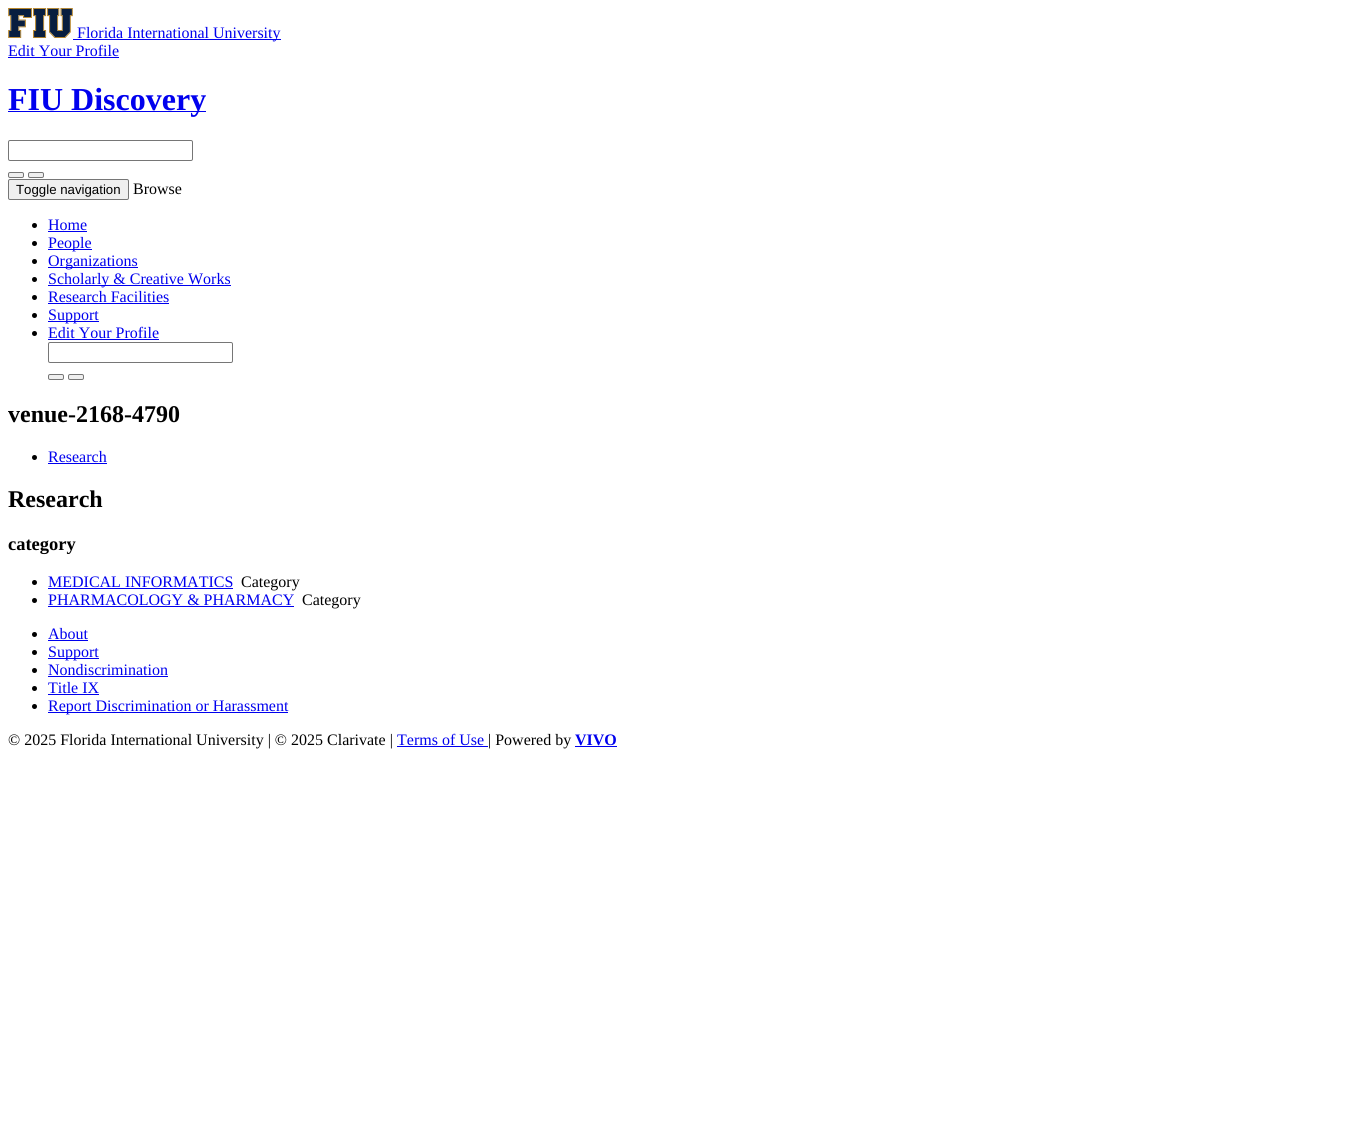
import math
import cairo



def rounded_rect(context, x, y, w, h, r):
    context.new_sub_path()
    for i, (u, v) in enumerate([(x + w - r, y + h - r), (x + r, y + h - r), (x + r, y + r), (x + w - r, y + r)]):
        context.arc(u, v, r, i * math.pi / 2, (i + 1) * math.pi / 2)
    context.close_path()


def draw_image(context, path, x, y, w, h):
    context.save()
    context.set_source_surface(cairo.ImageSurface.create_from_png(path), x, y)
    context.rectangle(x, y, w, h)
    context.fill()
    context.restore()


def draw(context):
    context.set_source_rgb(1, 1, 1)
    context.paint()
    draw_image(context, "images/1.png", 8, 8, 65, 30)
    context.set_source_rgb(0, 0, 238 / 255)
    context.rectangle(73, 39, 208, 1)
    context.fill()
    context.rectangle(8, 57, 111, 1)
    context.fill()
    context.rectangle(8, 111, 198, 1)
    context.fill()
    rounded_rect(context, 8.5, 140.5, 184, 20, 1.5)
    context.set_source_rgb(118 / 255, 118 / 255, 118 / 255)
    context.set_line_width(1)
    context.stroke()
    context.set_source_rgb(239 / 255, 239 / 255, 239 / 255)
    rounded_rect(context, 8.5, 172.5, 15, 5, 1.5)
    context.fill_preserve()
    context.set_source_rgb(118 / 255, 118 / 255, 118 / 255)
    context.stroke()
    context.set_source_rgb(239 / 255, 239 / 255, 239 / 255)
    rounded_rect(context, 28.5, 172.5, 15, 5, 1.5)
    context.fill_preserve()
    context.set_source_rgb(118 / 255, 118 / 255, 118 / 255)
    context.stroke()
    context.set_source_rgb(239 / 255, 239 / 255, 239 / 255)
    rounded_rect(context, 8.5, 179.5, 120, 20, 1.5)
    context.fill_preserve()
    context.set_source_rgb(118 / 255, 118 / 255, 118 / 255)
    context.stroke()
    context.set_source_rgb(0, 0, 0)
    context.arc(34.5, 225.5, 2.5, 0, 2 * math.pi)
    context.fill()
    context.set_source_rgb(0, 0, 238 / 255)
    context.rectangle(48, 231, 39, 1)
    context.fill()
    context.set_source_rgb(0, 0, 0)
    context.arc(34.5, 243.5, 2.5, 0, 2 * math.pi)
    context.fill()
    context.set_source_rgb(0, 0, 238 / 255)
    context.rectangle(48, 249, 44, 1)
    context.fill()
    context.set_source_rgb(0, 0, 0)
    context.arc(34.5, 261.5, 2.5, 0, 2 * math.pi)
    context.fill()
    context.set_source_rgb(0, 0, 238 / 255)
    context.rectangle(48, 267, 90, 1)
    context.fill()
    context.set_source_rgb(0, 0, 0)
    context.arc(34.5, 279.5, 2.5, 0, 2 * math.pi)
    context.fill()
    context.set_source_rgb(0, 0, 238 / 255)
    context.rectangle(48, 285, 183, 1)
    context.fill()
    context.set_source_rgb(0, 0, 0)
    context.arc(34.5, 297.5, 2.5, 0, 2 * math.pi)
    context.fill()
    context.set_source_rgb(0, 0, 238 / 255)
    context.rectangle(48, 303, 121, 1)
    context.fill()
    context.set_source_rgb(0, 0, 0)
    context.arc(34.5, 315.5, 2.5, 0, 2 * math.pi)
    context.fill()
    context.set_source_rgb(0, 0, 238 / 255)
    context.rectangle(48, 321, 51, 1)
    context.fill()
    context.set_source_rgb(0, 0, 0)
    context.arc(34.5, 333.5, 2.5, 0, 2 * math.pi)
    context.fill()
    context.set_source_rgb(0, 0, 238 / 255)
    context.rectangle(48, 339, 111, 1)
    context.fill()
    rounded_rect(context, 48.5, 342.5, 184, 20, 1.5)
    context.set_source_rgb(118 / 255, 118 / 255, 118 / 255)
    context.stroke()
    context.set_source_rgb(239 / 255, 239 / 255, 239 / 255)
    rounded_rect(context, 48.5, 374.5, 15, 5, 1.5)
    context.fill_preserve()
    context.set_source_rgb(118 / 255, 118 / 255, 118 / 255)
    context.stroke()
    context.set_source_rgb(239 / 255, 239 / 255, 239 / 255)
    rounded_rect(context, 68.5, 374.5, 15, 5, 1.5)
    context.fill_preserve()
    context.set_source_rgb(118 / 255, 118 / 255, 118 / 255)
    context.stroke()
    context.set_source_rgb(0, 0, 0)
    context.arc(34.5, 457.5, 2.5, 0, 2 * math.pi)
    context.fill()
    context.set_source_rgb(0, 0, 238 / 255)
    context.rectangle(48, 463, 59, 1)
    context.fill()
    context.set_source_rgb(0, 0, 0)
    context.arc(34.5, 582.5, 2.5, 0, 2 * math.pi)
    context.fill()
    context.set_source_rgb(0, 0, 238 / 255)
    context.rectangle(48, 588, 185, 1)
    context.fill()
    context.set_source_rgb(0, 0, 0)
    context.arc(34.5, 600.5, 2.5, 0, 2 * math.pi)
    context.fill()
    context.set_source_rgb(0, 0, 238 / 255)
    context.rectangle(48, 606, 246, 1)
    context.fill()
    context.set_source_rgb(0, 0, 0)
    context.arc(34.5, 634.5, 2.5, 0, 2 * math.pi)
    context.fill()
    context.set_source_rgb(0, 0, 238 / 255)
    context.rectangle(48, 640, 40, 1)
    context.fill()
    context.set_source_rgb(0, 0, 0)
    context.arc(34.5, 652.5, 2.5, 0, 2 * math.pi)
    context.fill()
    context.set_source_rgb(0, 0, 238 / 255)
    context.rectangle(48, 658, 51, 1)
    context.fill()
    context.set_source_rgb(0, 0, 0)
    context.arc(34.5, 670.5, 2.5, 0, 2 * math.pi)
    context.fill()
    context.set_source_rgb(0, 0, 238 / 255)
    context.rectangle(48, 676, 120, 1)
    context.fill()
    context.set_source_rgb(0, 0, 0)
    context.arc(34.5, 688.5, 2.5, 0, 2 * math.pi)
    context.fill()
    context.set_source_rgb(0, 0, 238 / 255)
    context.rectangle(48, 694, 51, 1)
    context.fill()
    context.set_source_rgb(0, 0, 0)
    context.arc(34.5, 706.5, 2.5, 0, 2 * math.pi)
    context.fill()
    context.set_source_rgb(0, 0, 238 / 255)
    context.rectangle(48, 712, 240, 1)
    context.fill()
    context.rectangle(397, 746, 91, 1)
    context.fill()
    context.rectangle(575, 746, 42, 1)
    context.fill()
    context.select_font_face("Liberation Serif")
    context.set_font_size(16)
    context.move_to(77, 38)
    context.show_text("Florida International University")
    context.move_to(8, 56)
    context.show_text("Edit Your Profile")
    context.select_font_face("Liberation Serif", cairo.FontSlant.NORMAL, cairo.FontWeight.BOLD)
    context.set_font_size(32)
    context.move_to(8, 110)
    context.show_text("FIU Discovery")
    context.select_font_face("Liberation Sans")
    context.set_font_size(13.25)
    context.set_source_rgb(0, 0, 0)
    context.move_to(16, 194)
    context.show_text("Toggle navigation")
    context.select_font_face("Liberation Serif")
    context.set_font_size(16)
    context.move_to(133, 194)
    context.show_text("Browse")
    context.set_source_rgb(0, 0, 238 / 255)
    context.move_to(48, 230)
    context.show_text("Home")
    context.move_to(48, 248)
    context.show_text("People")
    context.move_to(48, 266)
    context.show_text("Organizations")
    context.move_to(48, 284)
    context.show_text("Scholarly & Creative Works")
    context.move_to(48, 302)
    context.show_text("Research Facilities")
    context.move_to(48, 320)
    context.show_text("Support")
    context.move_to(48, 338)
    context.show_text("Edit Your Profile")
    context.select_font_face("Liberation Serif", cairo.FontSlant.NORMAL, cairo.FontWeight.BOLD)
    context.set_font_size(24)
    context.set_source_rgb(0, 0, 0)
    context.move_to(8, 422)
    context.show_text("venue-2168-4790")
    context.select_font_face("Liberation Serif")
    context.set_font_size(16)
    context.set_source_rgb(0, 0, 238 / 255)
    context.move_to(48, 462)
    context.show_text("Research")
    context.select_font_face("Liberation Serif", cairo.FontSlant.NORMAL, cairo.FontWeight.BOLD)
    context.set_font_size(24)
    context.set_source_rgb(0, 0, 0)
    context.move_to(8, 507)
    context.show_text("Research")
    context.set_font_size(18.5)
    context.move_to(8, 550)
    context.show_text("category")
    context.select_font_face("Liberation Serif")
    context.set_font_size(16)
    context.set_source_rgb(0, 0, 238 / 255)
    context.move_to(48, 587)
    context.show_text("MEDICAL INFORMATICS")
    context.set_source_rgb(0, 0, 0)
    context.move_to(241, 587)
    context.show_text("Category")
    context.set_source_rgb(0, 0, 238 / 255)
    context.move_to(48, 605)
    context.show_text("PHARMACOLOGY & PHARMACY")
    context.set_source_rgb(0, 0, 0)
    context.move_to(302, 605)
    context.show_text("Category")
    context.set_source_rgb(0, 0, 238 / 255)
    context.move_to(48, 639)
    context.show_text("About")
    context.move_to(48, 657)
    context.show_text("Support")
    context.move_to(48, 675)
    context.show_text("Nondiscrimination")
    context.move_to(48, 693)
    context.show_text("Title IX")
    context.move_to(48, 711)
    context.show_text("Report Discrimination or Harassment")
    context.set_source_rgb(0, 0, 0)
    context.move_to(8, 745)
    context.show_text("© 2025 Florida International University | © 2025 Clarivate |")
    context.set_source_rgb(0, 0, 238 / 255)
    context.move_to(397, 745)
    context.show_text("Terms of Use")
    context.set_source_rgb(0, 0, 0)
    context.move_to(488, 745)
    context.show_text("| Powered by")
    context.select_font_face("Liberation Serif", cairo.FontSlant.NORMAL, cairo.FontWeight.BOLD)
    context.set_source_rgb(0, 0, 238 / 255)
    context.move_to(575, 745)
    context.show_text("VIVO")


surface = cairo.ImageSurface(cairo.Format.RGB24, 1348, 1139)
context = cairo.Context(surface)
options = cairo.FontOptions()
options.set_hint_metrics(cairo.HintMetrics.OFF)
options.set_hint_style(cairo.HintStyle.NONE)
context.set_font_options(options)
context.set_miter_limit(4)
draw(context)
surface.write_to_png("out.png")
